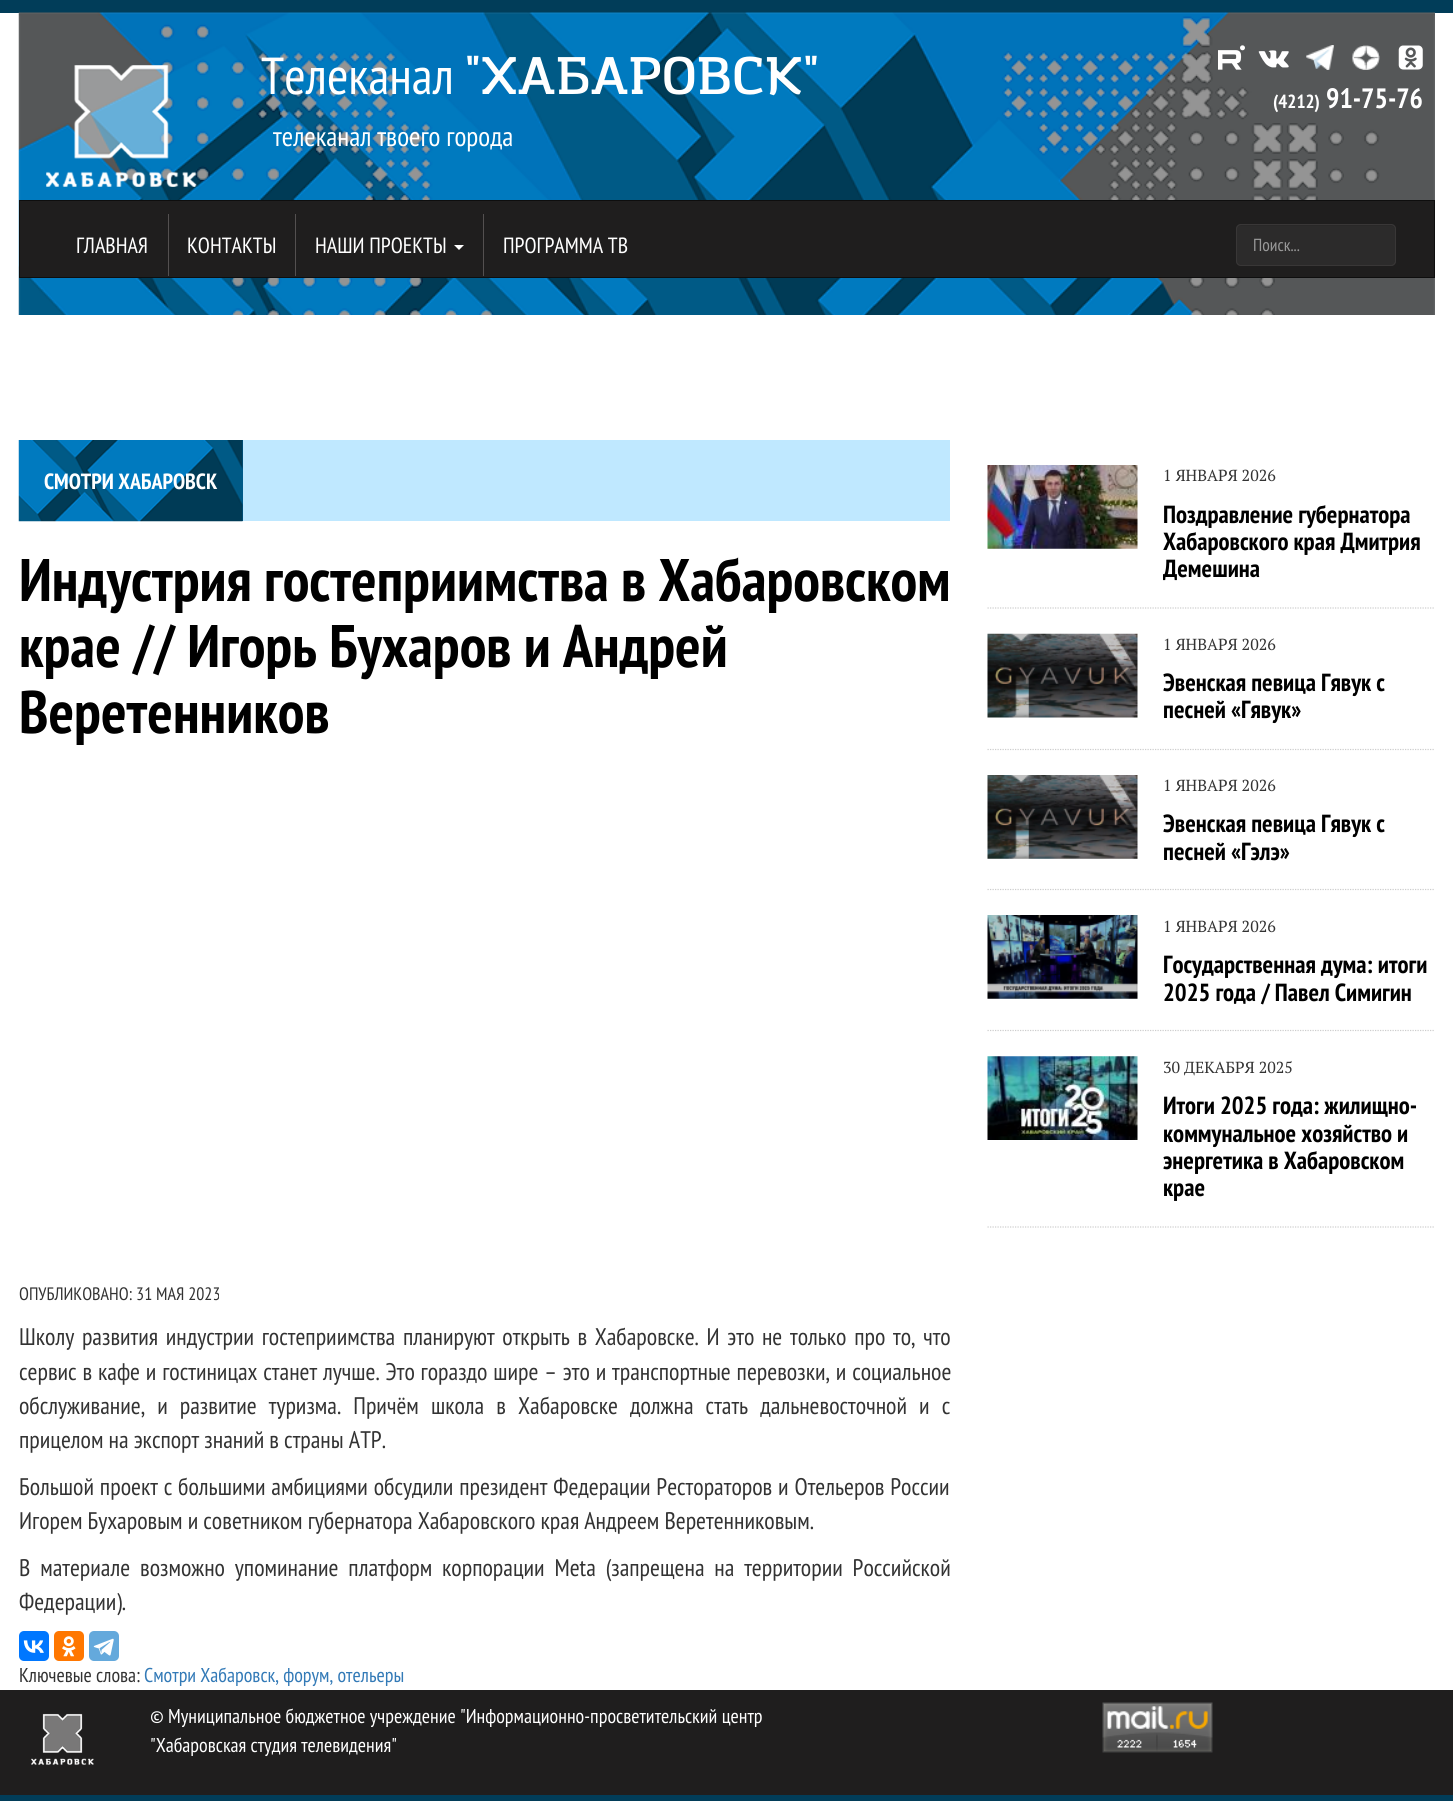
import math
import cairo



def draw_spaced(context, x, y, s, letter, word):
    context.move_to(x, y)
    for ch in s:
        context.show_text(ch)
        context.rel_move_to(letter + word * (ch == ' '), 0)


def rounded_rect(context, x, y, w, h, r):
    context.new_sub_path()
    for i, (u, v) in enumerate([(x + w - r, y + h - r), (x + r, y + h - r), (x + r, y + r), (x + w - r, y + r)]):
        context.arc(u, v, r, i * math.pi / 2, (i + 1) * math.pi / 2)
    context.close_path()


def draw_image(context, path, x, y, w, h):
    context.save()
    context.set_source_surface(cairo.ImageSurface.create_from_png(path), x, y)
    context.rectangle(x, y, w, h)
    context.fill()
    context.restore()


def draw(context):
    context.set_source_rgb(1 / 255, 61 / 255, 89 / 255)
    context.paint()
    context.set_source_rgb(1, 1, 1)
    context.rectangle(0, 13, 1453, 1677)
    context.fill()
    draw_image(context, "images/1.png", 18, 12, 1417, 303)
    draw_image(context, "images/2.png", 46, 65, 151, 122)
    draw_image(context, "images/3.png", 1218, 45, 27, 25)
    draw_image(context, "images/4.png", 1258, 50, 31, 18)
    draw_image(context, "images/5.png", 1306, 45, 28, 25)
    draw_image(context, "images/6.png", 1352, 45, 28, 25)
    draw_image(context, "images/7.png", 1398, 45, 25, 25)
    context.set_source_rgb(31 / 255, 30 / 255, 30 / 255)
    context.rectangle(19.5, 200.5, 1415, 77)
    context.fill_preserve()
    context.set_source_rgb(14 / 255, 14 / 255, 14 / 255)
    context.set_line_width(1)
    context.stroke()
    context.set_source_rgb(83 / 255, 80 / 255, 80 / 255)
    context.rectangle(168, 214, 1, 62)
    context.fill()
    context.rectangle(295, 214, 1, 62)
    context.fill()
    context.rectangle(483, 214, 1, 62)
    context.fill()
    context.set_source_rgb(1, 1, 1)
    context.new_path()
    context.move_to(454, 245)
    context.line_to(464, 245)
    context.line_to(459, 250)
    context.close_path()
    context.fill()
    context.set_source_rgb(44 / 255, 43 / 255, 43 / 255)
    rounded_rect(context, 1236, 224, 160, 42, 5)
    context.fill()
    context.set_source_rgb(41 / 255, 40 / 255, 40 / 255)
    context.new_path()
    context.move_to(1241, 226)
    context.line_to(1391, 226)
    context.curve_to(1393, 226, 1395, 228, 1395, 230)
    context.curve_to(1395, 228, 1394, 226, 1392, 225)
    context.line_to(1241, 225)
    context.curve_to(1239, 226, 1238, 228, 1238, 230)
    context.curve_to(1238, 228, 1239, 226, 1241, 226)
    context.close_path()
    context.fill()
    rounded_rect(context, 1236.5, 224.5, 159, 41, 4.5)
    context.set_source_rgb(57 / 255, 55 / 255, 55 / 255)
    context.stroke()
    context.set_source_rgb(191 / 255, 232 / 255, 1)
    context.rectangle(243, 440, 707, 81)
    context.fill()
    context.set_source_rgb(0, 90 / 255, 140 / 255)
    context.rectangle(242, 440, 1, 81)
    context.fill()
    draw_image(context, "images/8.png", 18, 440, 225, 82)
    context.set_source_rgb(0, 119 / 255, 1)
    rounded_rect(context, 19, 1631, 30, 30, 5)
    context.fill()
    draw_image(context, "images/9.png", 23, 1640, 21, 13)
    context.set_source_rgb(1, 119 / 255, 0)
    rounded_rect(context, 54, 1631, 30, 30, 5)
    context.fill()
    draw_image(context, "images/10.png", 62, 1636, 14, 21)
    context.set_source_rgb(100 / 255, 169 / 255, 220 / 255)
    rounded_rect(context, 89, 1631, 30, 30, 5)
    context.fill()
    draw_image(context, "images/11.png", 93, 1638, 21, 18)
    context.new_path()
    context.move_to(987.5, 608)
    context.line_to(1435, 608)
    context.set_source_rgb(205 / 255, 205 / 255, 205 / 255)
    context.set_line_width(1.2)
    context.set_dash([1.25, 1.25])
    context.stroke()
    draw_image(context, "images/12.png", 987, 465, 151, 84)
    context.new_path()
    context.move_to(987.5, 749.5)
    context.line_to(1435, 749.5)
    context.stroke()
    draw_image(context, "images/13.png", 987, 633, 151, 85)
    context.new_path()
    context.move_to(987.5, 889.5)
    context.line_to(1435, 889.5)
    context.stroke()
    draw_image(context, "images/14.png", 987, 775, 151, 84)
    context.new_path()
    context.move_to(987.5, 1030.5)
    context.line_to(1435, 1030.5)
    context.stroke()
    draw_image(context, "images/15.png", 987, 915, 151, 84)
    context.new_path()
    context.move_to(987.5, 1227)
    context.line_to(1435, 1227)
    context.stroke()
    draw_image(context, "images/16.png", 987, 1056, 151, 84)
    context.set_source_rgb(31 / 255, 30 / 255, 30 / 255)
    context.rectangle(0, 1690, 1453, 105)
    context.fill()
    draw_image(context, "images/17.png", 31, 1713, 63, 52)
    draw_image(context, "images/18.png", 1102, 1702, 111, 51)
    context.select_font_face("PT Sans Narrow")
    context.set_font_size(52)
    context.set_source_rgb(1, 1, 1)
    context.move_to(261, 94)
    context.show_text("Телеканал")
    context.select_font_face("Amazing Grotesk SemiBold")
    context.move_to(465, 94)
    context.show_text("\"ХАБАРОВСК\"")
    context.select_font_face("PT Sans Narrow")
    context.set_font_size(27.5)
    context.move_to(273, 146)
    context.show_text("телеканал твоего города")
    context.select_font_face("PT Sans Narrow", cairo.FontSlant.NORMAL, cairo.FontWeight.BOLD)
    context.set_font_size(19)
    context.move_to(1273, 108)
    context.show_text("(4212)")
    context.set_font_size(28)
    context.move_to(1326, 108)
    context.show_text("91-75-76")
    context.select_font_face("PT Sans Narrow")
    context.set_font_size(22)
    context.move_to(76, 253)
    context.show_text("ГЛАВНАЯ")
    context.move_to(187, 253)
    context.show_text("КОНТАКТЫ")
    context.move_to(315, 253)
    context.show_text("НАШИ ПРОЕКТЫ")
    context.move_to(503, 253)
    context.show_text("ПРОГРАММА ТВ")
    context.set_font_size(17.5)
    context.set_source_rgb(153 / 255, 153 / 255, 153 / 255)
    context.move_to(1253, 251)
    context.show_text("Поиск...")
    context.select_font_face("PT Sans Narrow", cairo.FontSlant.NORMAL, cairo.FontWeight.BOLD)
    context.set_font_size(22)
    context.set_source_rgb(1, 1, 1)
    context.move_to(44, 489)
    context.show_text("СМОТРИ ХАБАРОВСК")
    context.set_font_size(60)
    context.set_source_rgb(0, 0, 0)
    context.move_to(19, 601)
    context.show_text("Индустрия гостеприимства в Хабаровском")
    context.move_to(19, 667)
    context.show_text("крае // Игорь Бухаров и Андрей")
    context.move_to(19, 733)
    context.show_text("Веретенников")
    context.select_font_face("PT Sans Narrow")
    context.set_font_size(18)
    context.set_source_rgb(51 / 255, 51 / 255, 51 / 255)
    context.move_to(19, 1300)
    context.show_text("ОПУБЛИКОВАНО: 31 МАЯ 2023")
    context.set_font_size(24)
    draw_spaced(context, 19, 1345, "Школу развития индустрии гостеприимства планируют открыть в Хабаровске. И это не только про то, что", 0, 2.6)
    draw_spaced(context, 19, 1380, "сервис в кафе и гостиницах станет лучше. Это гораздо шире – это и транспортные перевозки, и социальное", 0, 0.75)
    draw_spaced(context, 19, 1414, "обслуживание, и развитие туризма. Причём школа в Хабаровске должна стать дальневосточной и с", 0, 7)
    context.move_to(19, 1448)
    context.show_text("прицелом на экспорт знаний в страны АТР.")
    draw_spaced(context, 19, 1495, "Большой проект с большими амбициями обсудили президент Федерации Рестораторов и Отельеров России", 0, 0.75)
    context.move_to(19, 1529)
    context.show_text("Игорем Бухаровым и советником губернатора Хабаровского края Андреем Веретенниковым.")
    draw_spaced(context, 19, 1576, "В материале возможно упоминание платформ корпорации Meta (запрещена на территории Российской", 0, 4.75)
    context.move_to(19, 1610)
    context.show_text("Федерации).")
    context.set_font_size(20)
    context.move_to(19, 1682)
    context.show_text("Ключевые слова:")
    context.set_source_rgb(51 / 255, 122 / 255, 183 / 255)
    context.move_to(144, 1682)
    context.show_text("Смотри Хабаровск, форум, отельеры")
    context.select_font_face("PT Serif")
    context.set_font_size(16)
    context.set_source_rgb(51 / 255, 51 / 255, 51 / 255)
    context.move_to(1163, 481)
    context.show_text("1 ЯНВАРЯ 2026")
    context.select_font_face("PT Sans Narrow", cairo.FontSlant.NORMAL, cairo.FontWeight.BOLD)
    context.set_font_size(24.75)
    context.set_source_rgb(0, 0, 0)
    context.move_to(1163, 523)
    context.show_text("Поздравление губернатора")
    context.move_to(1163, 550)
    context.show_text("Хабаровского края Дмитрия")
    context.save()
    context.rectangle(1163, 500, 272, 83)
    context.clip()
    context.move_to(1163, 577)
    context.show_text("Демешина")
    context.restore()
    context.select_font_face("PT Serif")
    context.set_font_size(16)
    context.set_source_rgb(51 / 255, 51 / 255, 51 / 255)
    context.move_to(1163, 650)
    context.show_text("1 ЯНВАРЯ 2026")
    context.select_font_face("PT Sans Narrow", cairo.FontSlant.NORMAL, cairo.FontWeight.BOLD)
    context.set_font_size(24.75)
    context.set_source_rgb(0, 0, 0)
    context.move_to(1163, 691)
    context.show_text("Эвенская певица Гявук с")
    context.move_to(1163, 718)
    context.show_text("песней «Гявук»")
    context.select_font_face("PT Serif")
    context.set_font_size(16)
    context.set_source_rgb(51 / 255, 51 / 255, 51 / 255)
    context.move_to(1163, 791)
    context.show_text("1 ЯНВАРЯ 2026")
    context.select_font_face("PT Sans Narrow", cairo.FontSlant.NORMAL, cairo.FontWeight.BOLD)
    context.set_font_size(24.75)
    context.set_source_rgb(0, 0, 0)
    context.move_to(1163, 832)
    context.show_text("Эвенская певица Гявук с")
    context.move_to(1163, 860)
    context.show_text("песней «Гэлэ»")
    context.select_font_face("PT Serif")
    context.set_font_size(16)
    context.set_source_rgb(51 / 255, 51 / 255, 51 / 255)
    context.move_to(1163, 932)
    context.show_text("1 ЯНВАРЯ 2026")
    context.select_font_face("PT Sans Narrow", cairo.FontSlant.NORMAL, cairo.FontWeight.BOLD)
    context.set_font_size(24.75)
    context.set_source_rgb(0, 0, 0)
    context.move_to(1163, 973)
    context.show_text("Государственная дума: итоги")
    context.move_to(1163, 1001)
    context.show_text("2025 года / Павел Симигин")
    context.select_font_face("PT Serif")
    context.set_font_size(16)
    context.set_source_rgb(51 / 255, 51 / 255, 51 / 255)
    context.move_to(1163, 1073)
    context.show_text("30 ДЕКАБРЯ 2025")
    context.select_font_face("PT Sans Narrow", cairo.FontSlant.NORMAL, cairo.FontWeight.BOLD)
    context.set_font_size(24.75)
    context.set_source_rgb(0, 0, 0)
    context.move_to(1163, 1114)
    context.show_text("Итоги 2025 года: жилищно-")
    context.move_to(1163, 1142)
    context.show_text("коммунальное хозяйство и")
    context.move_to(1163, 1169)
    context.show_text("энергетика в Хабаровском")
    context.move_to(1163, 1196)
    context.show_text("крае")
    context.select_font_face("PT Sans Narrow")
    context.set_font_size(20)
    context.set_source_rgb(1, 1, 1)
    context.move_to(150, 1723)
    context.show_text("© Муниципальное бюджетное учреждение \"Информационно-просветительский центр")
    context.move_to(150, 1752)
    context.show_text("\"Хабаровская студия телевидения\"")


surface = cairo.ImageSurface(cairo.Format.RGB24, 1453, 1801)
context = cairo.Context(surface)
options = cairo.FontOptions()
options.set_hint_metrics(cairo.HintMetrics.OFF)
options.set_hint_style(cairo.HintStyle.NONE)
context.set_font_options(options)
context.set_miter_limit(4)
draw(context)
surface.write_to_png("out.png")
